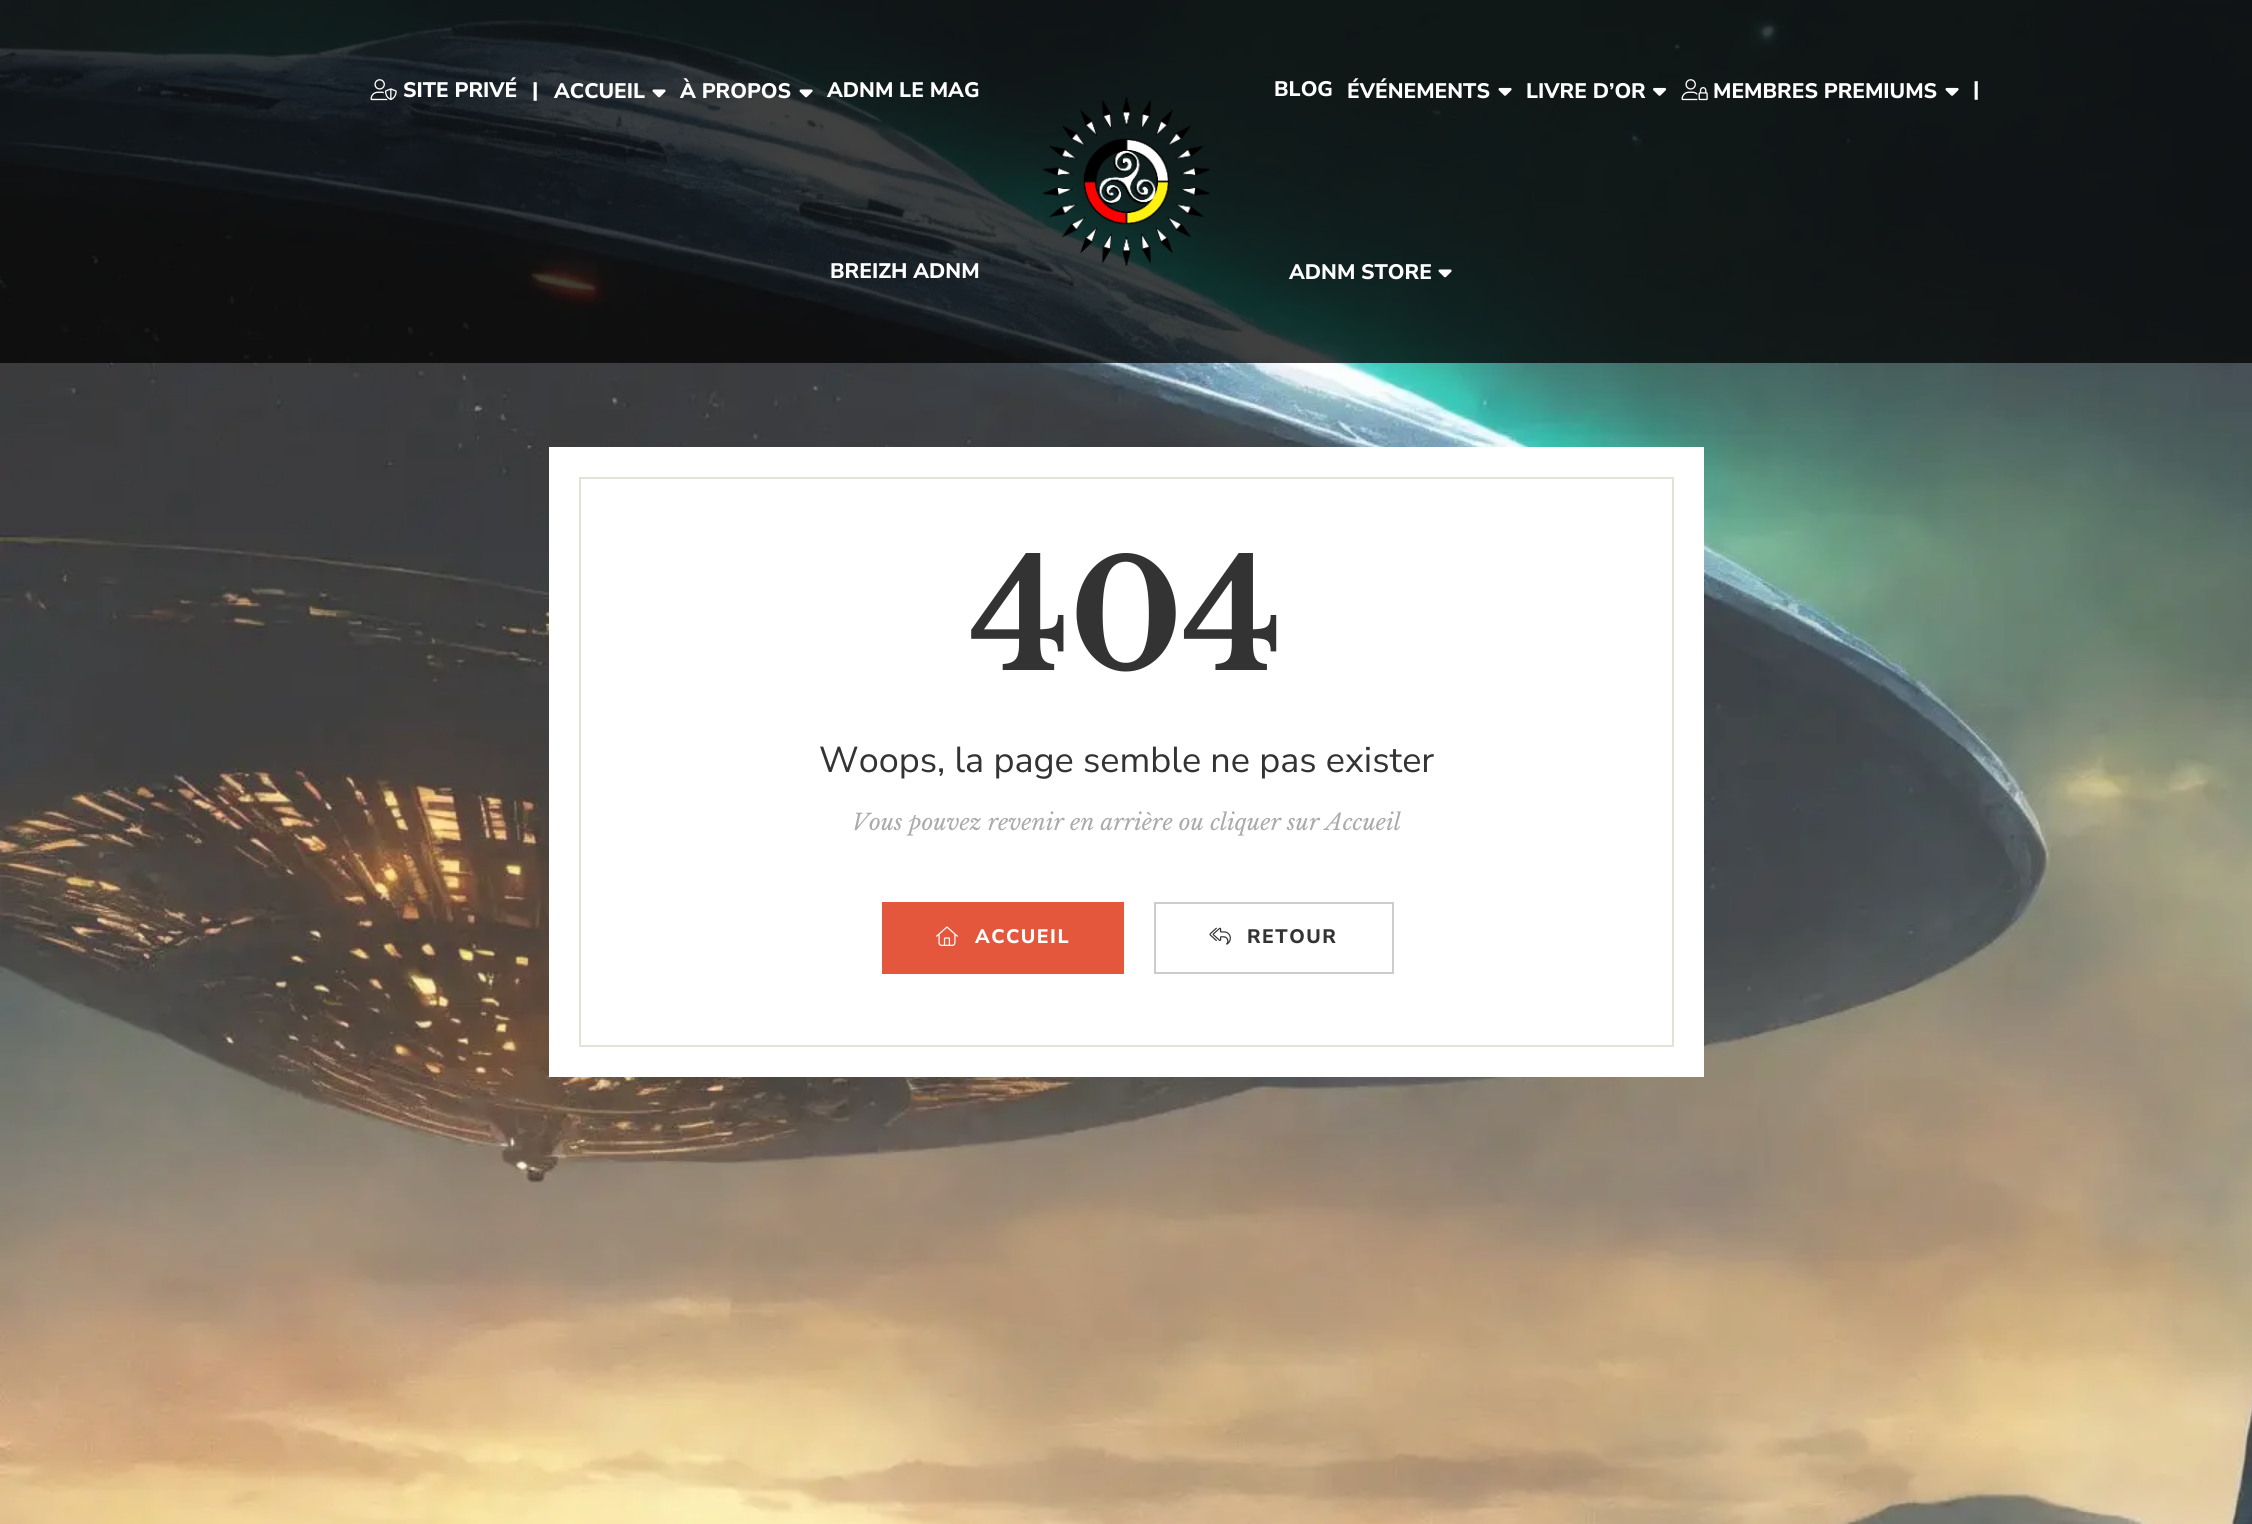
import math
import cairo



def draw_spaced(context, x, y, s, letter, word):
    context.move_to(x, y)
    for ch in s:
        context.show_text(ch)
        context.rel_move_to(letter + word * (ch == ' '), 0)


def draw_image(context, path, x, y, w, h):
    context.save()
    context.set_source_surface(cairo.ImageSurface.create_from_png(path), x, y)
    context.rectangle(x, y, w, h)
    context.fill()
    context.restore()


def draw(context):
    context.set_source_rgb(1, 1, 1)
    context.paint()
    draw_image(context, "images/10.png", 0, 0, 2252, 1524)
    context.set_source_rgba(0, 0, 0, 0.75)
    context.rectangle(0, 0, 2252, 363)
    context.fill()
    draw_image(context, "images/1.png", 370, 79, 27, 22)
    draw_image(context, "images/2.png", 652, 89, 14, 9)
    draw_image(context, "images/3.png", 799, 89, 14, 9)
    draw_image(context, "images/4.png", 1042, 97, 168, 170)
    draw_image(context, "images/5.png", 1498, 87, 14, 9)
    draw_image(context, "images/6.png", 1653, 87, 14, 9)
    draw_image(context, "images/7.png", 1681, 79, 27, 22)
    draw_image(context, "images/8.png", 1945, 87, 14, 9)
    draw_image(context, "images/9.png", 1438, 269, 14, 9)
    context.set_source_rgb(1, 1, 1)
    context.rectangle(549, 447, 1155, 630)
    context.fill()
    context.rectangle(580, 478, 1093, 568)
    context.set_source_rgb(228 / 255, 226 / 255, 216 / 255)
    context.stroke()
    context.set_source_rgb(228 / 255, 87 / 255, 61 / 255)
    context.rectangle(882, 902, 242, 72)
    context.fill()
    draw_image(context, "images/11.png", 936, 926, 22, 20)
    context.rectangle(1155, 903, 238, 70)
    context.set_source_rgb(204 / 255, 204 / 255, 204 / 255)
    context.stroke()
    draw_image(context, "images/12.png", 1209, 927, 22, 18)
    context.select_font_face("Nunito Sans ExtraBold")
    context.set_font_size(21)
    context.set_source_rgb(1, 1, 1)
    context.move_to(403, 97)
    context.show_text("SITE PRIVÉ")
    context.move_to(532, 97)
    context.show_text("|")
    context.move_to(554, 98)
    context.show_text("ACCUEIL")
    context.move_to(680, 98)
    context.show_text("À PROPOS")
    context.move_to(827, 97)
    context.show_text("ADNM LE MAG")
    context.move_to(830, 278)
    context.show_text("BREIZH ADNM")
    context.move_to(1274, 96)
    context.show_text("BLOG")
    context.move_to(1347, 98)
    context.show_text("ÉVÉNEMENTS")
    context.move_to(1526, 98)
    context.show_text("LIVRE D’OR")
    context.move_to(1713, 98)
    context.show_text("MEMBRES PREMIUMS")
    context.move_to(1973, 96)
    context.show_text("|")
    context.move_to(1289, 279)
    context.show_text("ADNM STORE")
    context.select_font_face("Libre Baskerville", cairo.FontSlant.NORMAL, cairo.FontWeight.BOLD)
    context.set_font_size(150)
    context.set_source_rgb(51 / 255, 51 / 255, 51 / 255)
    context.move_to(970, 670)
    context.show_text("404")
    context.select_font_face("Nunito Sans")
    context.set_font_size(36)
    context.move_to(819, 772)
    context.show_text("Woops, la page semble ne pas exister")
    context.select_font_face("Libre Baskerville", cairo.FontSlant.ITALIC)
    context.set_font_size(22.5)
    context.set_source_rgb(171 / 255, 171 / 255, 171 / 255)
    context.move_to(852, 830)
    context.show_text("Vous pouvez revenir en arrière ou cliquer sur Accueil")
    context.select_font_face("Nunito Sans ExtraBold")
    context.set_font_size(19.5)
    context.set_source_rgb(1, 1, 1)
    draw_spaced(context, 975, 943, "ACCUEIL", 1.5, 0)
    context.set_source_rgb(51 / 255, 51 / 255, 51 / 255)
    draw_spaced(context, 1247, 943, "RETOUR", 1.5, 0)


surface = cairo.ImageSurface(cairo.Format.RGB24, 2252, 1524)
context = cairo.Context(surface)
options = cairo.FontOptions()
options.set_hint_metrics(cairo.HintMetrics.OFF)
options.set_hint_style(cairo.HintStyle.NONE)
context.set_font_options(options)
context.set_miter_limit(4)
draw(context)
surface.write_to_png("out.png")
